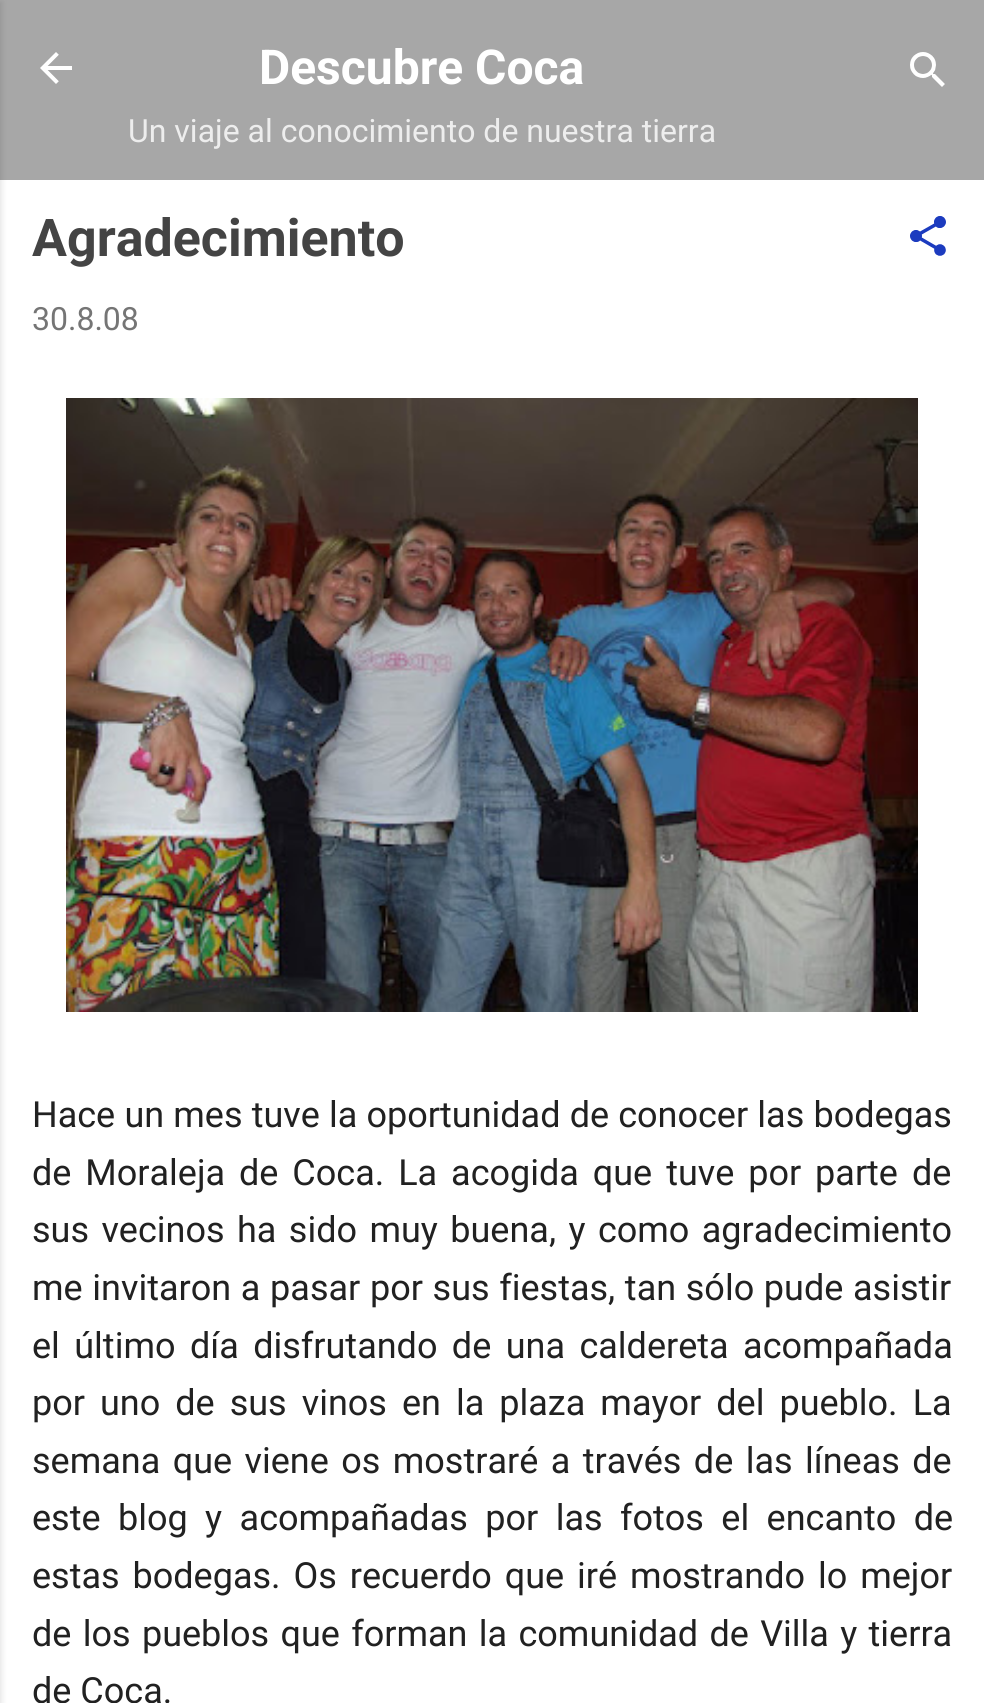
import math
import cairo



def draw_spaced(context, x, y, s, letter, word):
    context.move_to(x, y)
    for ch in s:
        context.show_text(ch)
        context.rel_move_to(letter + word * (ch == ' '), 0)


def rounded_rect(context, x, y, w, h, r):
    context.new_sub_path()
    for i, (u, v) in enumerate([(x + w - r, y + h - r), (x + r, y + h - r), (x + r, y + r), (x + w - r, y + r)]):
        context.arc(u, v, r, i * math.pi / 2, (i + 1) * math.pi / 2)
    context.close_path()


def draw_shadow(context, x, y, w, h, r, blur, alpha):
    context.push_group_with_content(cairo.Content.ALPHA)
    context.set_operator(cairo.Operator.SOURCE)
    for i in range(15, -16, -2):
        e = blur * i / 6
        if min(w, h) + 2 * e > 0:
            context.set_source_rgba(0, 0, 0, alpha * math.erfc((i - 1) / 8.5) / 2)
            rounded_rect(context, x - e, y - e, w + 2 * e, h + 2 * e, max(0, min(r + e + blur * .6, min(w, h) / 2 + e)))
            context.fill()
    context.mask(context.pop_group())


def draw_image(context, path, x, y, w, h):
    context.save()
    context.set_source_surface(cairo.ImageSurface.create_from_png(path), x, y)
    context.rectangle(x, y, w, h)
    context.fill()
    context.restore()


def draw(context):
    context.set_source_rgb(167 / 255, 167 / 255, 167 / 255)
    context.paint()
    context.set_source_rgb(1, 1, 1)
    context.rectangle(0, 180, 984, 1523)
    context.fill()
    context.set_source_rgb(0, 0, 0)
    draw_shadow(context, -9, 2, 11, 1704, 0, 3, 0.1)
    draw_image(context, "images/1.png", 40, 52, 32, 32)
    draw_image(context, "images/2.png", 910, 52, 35, 35)
    draw_image(context, "images/3.png", 910, 216, 36, 40)
    draw_image(context, "images/4.png", 66, 398, 852, 614)
    context.select_font_face("Roboto", cairo.FontSlant.NORMAL, cairo.FontWeight.BOLD)
    context.set_font_size(48)
    context.set_source_rgb(1, 1, 1)
    context.move_to(259, 84)
    context.show_text("Descubre Coca")
    context.select_font_face("Roboto")
    context.set_font_size(32)
    context.set_source_rgb(237 / 255, 237 / 255, 237 / 255)
    context.move_to(128, 142)
    context.show_text("Un viaje al conocimiento de nuestra tierra")
    context.select_font_face("Roboto", cairo.FontSlant.NORMAL, cairo.FontWeight.BOLD)
    context.set_font_size(52)
    context.set_source_rgb(68 / 255, 68 / 255, 68 / 255)
    context.move_to(32, 256)
    context.show_text("Agradecimiento")
    context.select_font_face("Roboto")
    context.set_font_size(32)
    context.set_source_rgb(117 / 255, 117 / 255, 117 / 255)
    context.move_to(32, 330)
    context.show_text("30.8.08")
    context.set_font_size(36)
    context.set_source_rgb(33 / 255, 33 / 255, 33 / 255)
    draw_spaced(context, 32, 1127, "Hace un mes tuve la oportunidad de conocer las bodegas", 0, 0.25)
    draw_spaced(context, 32, 1185, "de Moraleja de Coca. La acogida que tuve por parte de", 0, 5)
    draw_spaced(context, 32, 1242, "sus vecinos ha sido muy buena, y como agradecimiento", 0, 3.5)
    draw_spaced(context, 32, 1300, "me invitaron a pasar por sus fiestas, tan sólo pude asistir", 0, 0.75)
    draw_spaced(context, 32, 1358, "el último día disfrutando de una caldereta acompañada", 0, 5.5)
    draw_spaced(context, 32, 1415, "por uno de sus vinos en la plaza mayor del pueblo. La", 0, 6.1)
    draw_spaced(context, 32, 1473, "semana que viene os mostraré a través de las líneas de", 0, 3.5)
    draw_spaced(context, 32, 1530, "este blog y acompañadas por las fotos el encanto de", 0, 8.5)
    draw_spaced(context, 32, 1588, "estas bodegas. Os recuerdo que iré mostrando lo mejor", 0, 4)
    draw_spaced(context, 32, 1646, "de los pueblos que forman la comunidad de Villa y tierra", 0, 2.4)
    context.move_to(32, 1703)
    context.show_text("de Coca.")


surface = cairo.ImageSurface(cairo.Format.RGB24, 984, 1703)
context = cairo.Context(surface)
options = cairo.FontOptions()
options.set_hint_metrics(cairo.HintMetrics.OFF)
options.set_hint_style(cairo.HintStyle.NONE)
context.set_font_options(options)
context.set_miter_limit(4)
draw(context)
surface.write_to_png("out.png")
